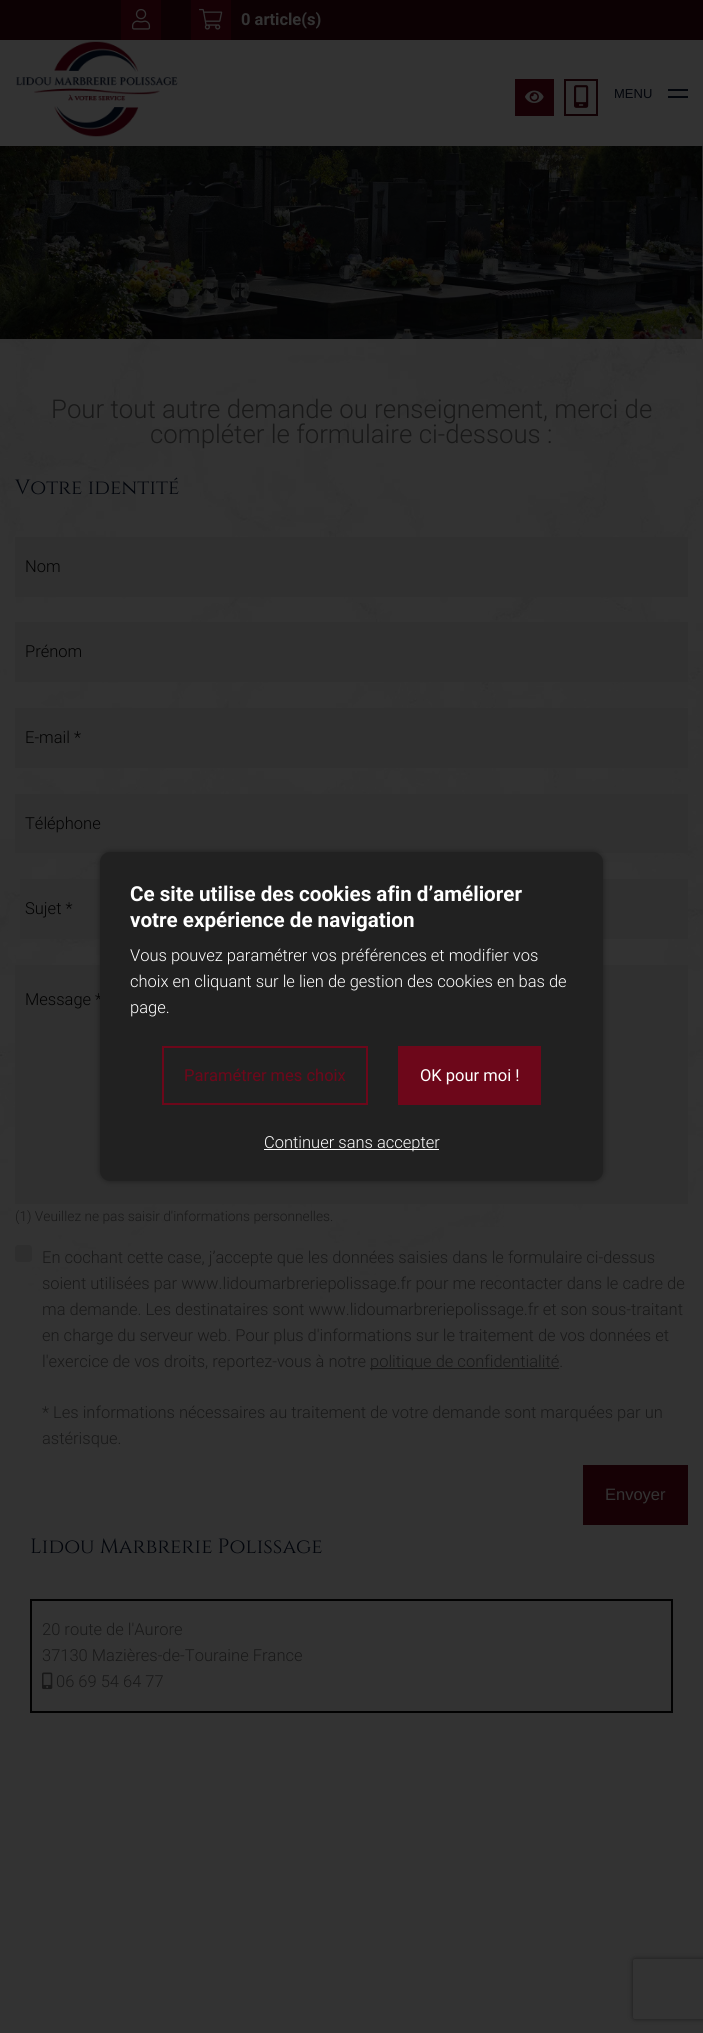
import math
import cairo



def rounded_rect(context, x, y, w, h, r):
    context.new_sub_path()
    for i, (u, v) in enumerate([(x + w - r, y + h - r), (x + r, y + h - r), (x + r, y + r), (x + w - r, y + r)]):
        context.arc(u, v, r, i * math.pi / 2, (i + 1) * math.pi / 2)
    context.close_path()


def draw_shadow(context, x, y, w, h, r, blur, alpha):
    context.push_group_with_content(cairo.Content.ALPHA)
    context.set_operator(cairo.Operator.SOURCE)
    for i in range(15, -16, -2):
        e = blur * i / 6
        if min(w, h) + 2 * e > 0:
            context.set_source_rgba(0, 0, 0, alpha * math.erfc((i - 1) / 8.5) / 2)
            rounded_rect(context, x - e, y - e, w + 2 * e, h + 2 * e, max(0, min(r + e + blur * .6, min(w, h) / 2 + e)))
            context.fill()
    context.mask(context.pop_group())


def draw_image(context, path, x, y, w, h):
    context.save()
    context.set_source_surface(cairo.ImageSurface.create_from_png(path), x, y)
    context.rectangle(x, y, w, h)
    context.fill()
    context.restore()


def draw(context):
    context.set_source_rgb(1, 1, 1)
    context.paint()
    context.set_source_rgb(12 / 255, 1 / 255, 3 / 255)
    context.rectangle(0, 0, 703, 40)
    context.fill()
    context.set_source_rgb(22 / 255, 1 / 255, 5 / 255)
    context.rectangle(121, 0, 40, 40)
    context.fill()
    draw_image(context, "images/1.png", 132, 9, 19, 21)
    context.rectangle(191, 0, 40, 40)
    context.fill()
    draw_image(context, "images/2.png", 199, 8, 24, 22)
    context.set_source_rgb(51 / 255, 51 / 255, 51 / 255)
    context.rectangle(0, 40, 703, 106)
    context.fill()
    draw_image(context, "images/3.png", 16, 41, 162, 96)
    context.set_source_rgb(22 / 255, 1 / 255, 5 / 255)
    context.rectangle(515, 79, 39, 37)
    context.fill()
    draw_image(context, "images/4.png", 525, 90, 19, 13)
    context.rectangle(565, 80, 32, 35)
    context.set_source_rgb(17 / 255, 1 / 255, 4 / 255)
    context.stroke()
    draw_image(context, "images/5.png", 574, 85, 15, 23)
    context.set_source_rgb(2 / 255, 5 / 255, 11 / 255)
    context.rectangle(668, 89, 20, 2)
    context.fill()
    context.rectangle(668, 96, 20, 2)
    context.fill()
    draw_image(context, "images/6.png", 0, 146, 703, 193)
    context.set_source_rgb(51 / 255, 51 / 255, 51 / 255)
    context.rectangle(0, 1299, 703, 734)
    context.fill()
    draw_image(context, "images/7.png", 0, 339, 703, 960)
    context.set_source_rgb(48 / 255, 48 / 255, 48 / 255)
    context.rectangle(15, 537, 673, 60)
    context.fill()
    context.rectangle(15, 622, 673, 60)
    context.fill()
    context.rectangle(15, 708, 673, 60)
    context.fill()
    context.rectangle(15, 794, 673, 59)
    context.fill()
    context.rectangle(20, 879, 668, 60)
    context.fill()
    context.rectangle(15, 965, 673, 239)
    context.fill()
    context.set_source_rgb(46 / 255, 46 / 255, 46 / 255)
    rounded_rect(context, 15, 1245, 17, 17, 3)
    context.fill()
    context.set_source_rgb(24 / 255, 24 / 255, 24 / 255)
    context.rectangle(370, 1368, 189, 1)
    context.fill()
    context.set_source_rgb(22 / 255, 1 / 255, 5 / 255)
    context.rectangle(583, 1465, 105, 60)
    context.fill()
    context.rectangle(31, 1600, 641, 112)
    context.set_source_rgb(2 / 255, 2 / 255, 2 / 255)
    context.stroke()
    draw_image(context, "images/8.png", 42, 1672, 11, 18)
    context.set_source_rgb(0, 0, 0)
    draw_shadow(context, 100, 852, 503, 329, 10, 3, 0.4)
    context.save()
    context.set_fill_rule(cairo.FillRule.EVEN_ODD)
    context.new_path()
    context.move_to(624, 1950)
    context.line_to(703, 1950)
    context.line_to(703, 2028)
    context.line_to(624, 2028)
    context.close_path()
    context.move_to(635, 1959)
    context.line_to(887, 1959)
    context.curve_to(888, 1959, 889, 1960, 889, 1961)
    context.line_to(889, 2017)
    context.curve_to(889, 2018, 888, 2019, 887, 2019)
    context.line_to(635, 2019)
    context.curve_to(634, 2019, 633, 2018, 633, 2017)
    context.line_to(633, 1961)
    context.curve_to(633, 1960, 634, 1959, 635, 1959)
    context.close_path()
    context.clip()
    context.set_source_rgb(26 / 255, 26 / 255, 26 / 255)
    draw_shadow(context, 633, 1959, 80, 60, 2, 2.5, 1)
    context.restore()
    context.select_font_face("Roboto", cairo.FontSlant.NORMAL, cairo.FontWeight.BOLD)
    context.set_font_size(16.5)
    context.set_source_rgb(51 / 255, 51 / 255, 51 / 255)
    context.move_to(241, 25)
    context.show_text("0 article(s)")
    context.select_font_face("Liberation Sans")
    context.set_font_size(13)
    context.set_source_rgb(2 / 255, 5 / 255, 11 / 255)
    context.move_to(614, 98)
    context.show_text("MENU")
    context.select_font_face("Roboto Light")
    context.set_font_size(25.8)
    context.set_source_rgb(24 / 255, 24 / 255, 24 / 255)
    context.move_to(51, 418)
    context.show_text("Pour tout autre demande ou renseignement, merci de")
    context.move_to(150, 443)
    context.show_text("compléter le formulaire ci-dessous :")
    context.select_font_face("Cinzel")
    context.set_font_size(20.6)
    context.set_source_rgb(2 / 255, 5 / 255, 11 / 255)
    context.move_to(15, 494)
    context.show_text("Votre identité")
    context.select_font_face("Roboto Light")
    context.set_font_size(16.5)
    context.set_source_rgb(2 / 255, 2 / 255, 2 / 255)
    context.move_to(25, 572)
    context.show_text("Nom")
    context.move_to(25, 657)
    context.show_text("Prénom")
    context.move_to(25, 743)
    context.show_text("E-mail *")
    context.move_to(25, 829)
    context.show_text("Téléphone")
    context.move_to(25, 914)
    context.show_text("Sujet *")
    context.move_to(25, 1005)
    context.show_text("Message *")
    context.set_font_size(13.75)
    context.set_source_rgb(24 / 255, 24 / 255, 24 / 255)
    context.move_to(15, 1221)
    context.show_text("(1) Veuillez ne pas saisir d'informations personnelles.")
    context.set_font_size(16.5)
    context.move_to(42, 1263)
    context.show_text("En cochant cette case, j’accepte que les données saisies dans le formulaire ci-dessus")
    context.move_to(42, 1289)
    context.show_text("soient utilisées par www.lidoumarbreriepolissage.fr pour me recontacter dans le cadre de")
    context.move_to(42, 1315)
    context.show_text("ma demande. Les destinataires sont www.lidoumarbreriepolissage.fr et son sous-traitant")
    context.move_to(42, 1341)
    context.show_text("en charge du serveur web. Pour plus d'informations sur le traitement de vos données et")
    context.move_to(42, 1367)
    context.show_text("l'exercice de vos droits, reportez-vous à notre")
    context.move_to(370, 1367)
    context.show_text("politique de confidentialité.")
    context.move_to(42, 1418)
    context.show_text("* Les informations nécessaires au traitement de votre demande sont marquées par un")
    context.move_to(42, 1444)
    context.show_text("astérisque.")
    context.select_font_face("Liberation Sans")
    context.set_source_rgb(51 / 255, 51 / 255, 51 / 255)
    context.move_to(605, 1500)
    context.show_text("Envoyer")
    context.select_font_face("Cinzel")
    context.set_font_size(20.6)
    context.set_source_rgb(2 / 255, 5 / 255, 11 / 255)
    context.move_to(30, 1553)
    context.show_text("Lidou Marbrerie Polissage")
    context.select_font_face("Roboto Light")
    context.set_font_size(16.5)
    context.set_source_rgb(24 / 255, 24 / 255, 24 / 255)
    context.move_to(42, 1635)
    context.show_text("20 route de l'Aurore")
    context.move_to(42, 1661)
    context.show_text("37130 Mazières-de-Touraine France")
    context.move_to(56, 1687)
    context.show_text("06 69 54 64 77")
    context.set_source_rgb(33 / 255, 33 / 255, 33 / 255)
    rounded_rect(context, 100, 852, 503, 329, 10)
    context.fill()
    context.select_font_face("Roboto", cairo.FontSlant.NORMAL, cairo.FontWeight.BOLD)
    context.set_font_size(20.6)
    context.set_source_rgb(1, 1, 1)
    context.move_to(130, 901)
    context.show_text("Ce site utilise des cookies afin d’améliorer")
    context.move_to(130, 927)
    context.show_text("votre expérience de navigation")
    context.select_font_face("Roboto Light")
    context.set_font_size(16.5)
    context.move_to(130, 961)
    context.show_text("Vous pouvez paramétrer vos préférences et modifier vos")
    context.move_to(130, 987)
    context.show_text("choix en cliquant sur le lien de gestion des cookies en bas de")
    context.move_to(130, 1013)
    context.show_text("page.")
    context.rectangle(163, 1047, 204, 57)
    context.set_source_rgb(109 / 255, 7 / 255, 26 / 255)
    context.stroke()
    context.select_font_face("Roboto")
    context.move_to(184, 1081)
    context.show_text("Paramétrer mes choix")
    context.rectangle(398, 1046, 143, 59)
    context.fill()
    context.set_source_rgb(1, 1, 1)
    context.move_to(420, 1081)
    context.show_text("OK pour moi !")
    context.rectangle(264, 1149, 175, 1)
    context.fill()
    context.select_font_face("Roboto Light")
    context.move_to(264, 1148)
    context.show_text("Continuer sans accepter")


surface = cairo.ImageSurface(cairo.Format.RGB24, 703, 2033)
context = cairo.Context(surface)
options = cairo.FontOptions()
options.set_hint_metrics(cairo.HintMetrics.OFF)
options.set_hint_style(cairo.HintStyle.NONE)
context.set_font_options(options)
context.set_miter_limit(4)
draw(context)
surface.write_to_png("out.png")
